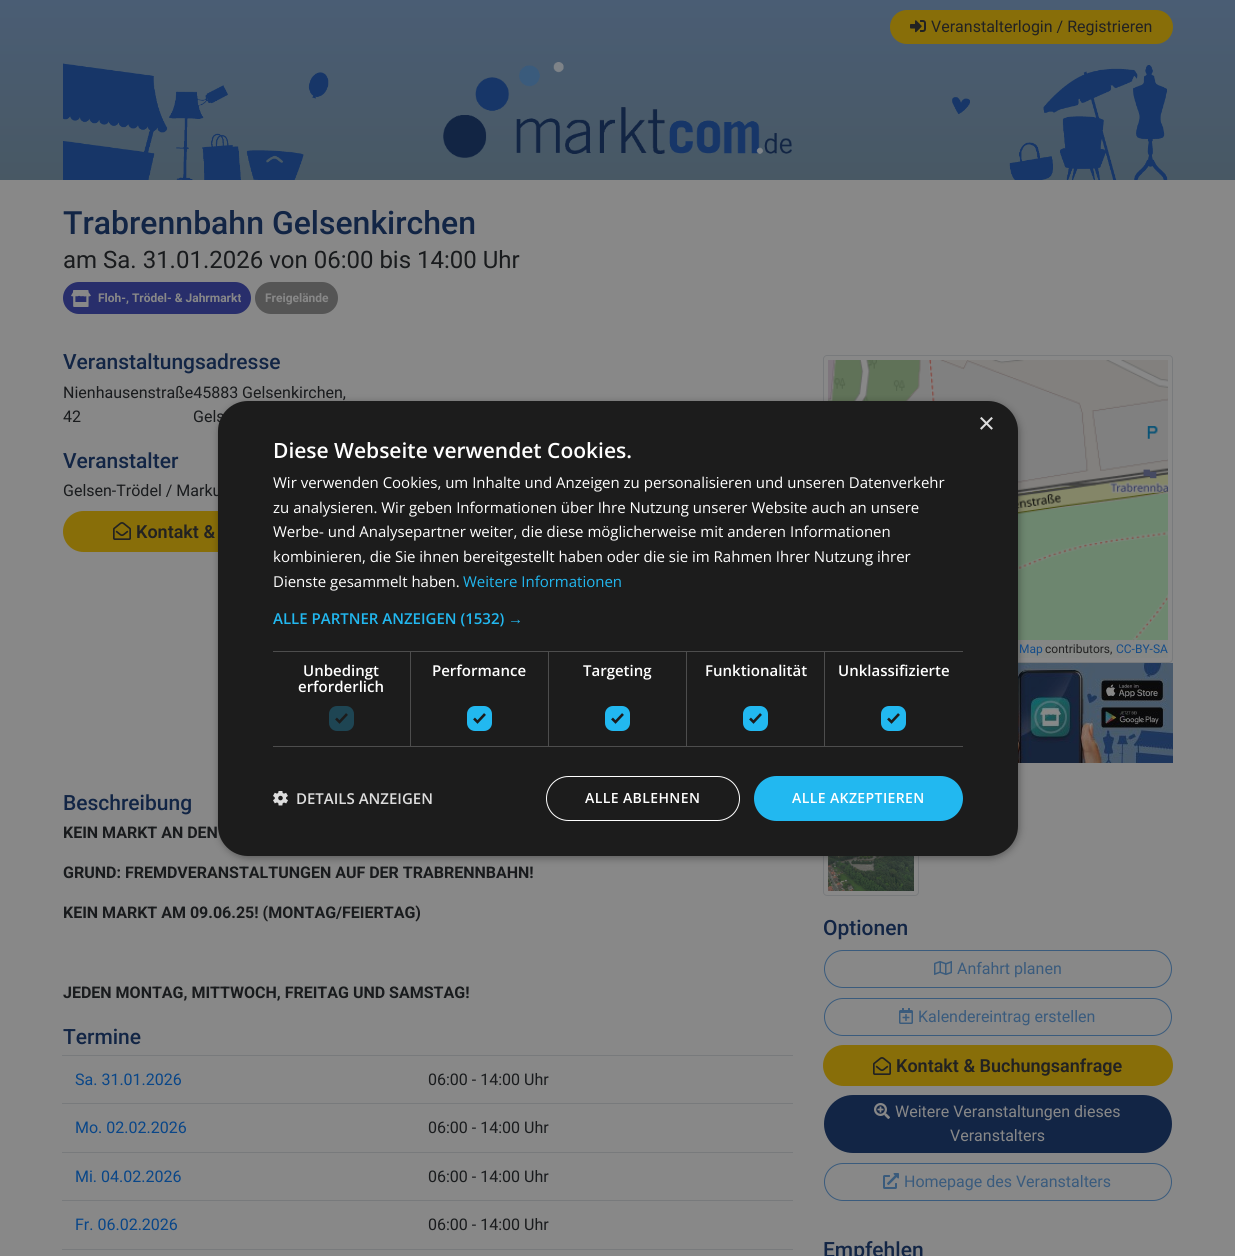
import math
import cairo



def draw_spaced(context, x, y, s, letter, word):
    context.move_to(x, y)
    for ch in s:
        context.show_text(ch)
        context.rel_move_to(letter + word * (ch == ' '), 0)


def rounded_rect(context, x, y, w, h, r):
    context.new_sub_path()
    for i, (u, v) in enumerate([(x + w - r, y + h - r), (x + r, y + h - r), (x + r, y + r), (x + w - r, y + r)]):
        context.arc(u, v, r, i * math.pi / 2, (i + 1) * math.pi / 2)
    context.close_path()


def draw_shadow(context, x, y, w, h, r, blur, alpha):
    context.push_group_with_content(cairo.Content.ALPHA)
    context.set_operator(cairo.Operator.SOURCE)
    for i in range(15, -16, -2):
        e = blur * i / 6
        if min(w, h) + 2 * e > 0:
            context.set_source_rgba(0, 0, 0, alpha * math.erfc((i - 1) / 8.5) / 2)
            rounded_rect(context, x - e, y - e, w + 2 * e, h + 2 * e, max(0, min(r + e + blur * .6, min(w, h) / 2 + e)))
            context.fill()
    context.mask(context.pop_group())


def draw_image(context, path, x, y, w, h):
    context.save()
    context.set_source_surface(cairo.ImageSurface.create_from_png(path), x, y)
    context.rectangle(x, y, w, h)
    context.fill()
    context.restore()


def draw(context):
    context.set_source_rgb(136 / 255, 136 / 255, 136 / 255)
    context.paint()
    gradient = cairo.LinearGradient(618, 0, 618, 180)
    gradient.add_color_stop_rgba(0, 74 / 255, 93 / 255, 116 / 255, 1)
    gradient.add_color_stop_rgba(1, 72 / 255, 88 / 255, 100 / 255, 1)
    context.set_source(gradient)
    context.rectangle(0, 0, 1235, 180)
    context.fill()
    context.set_source_rgb(136 / 255, 110 / 255, 9 / 255)
    rounded_rect(context, 890, 10, 283, 34, 17)
    context.fill()
    draw_image(context, "images/1.png", 910, 20, 16, 13)
    draw_image(context, "images/2.png", 63, 63, 266, 117)
    draw_image(context, "images/3.png", 443, 62, 349, 96)
    draw_image(context, "images/4.png", 952, 65, 216, 115)
    context.set_source_rgb(40 / 255, 46 / 255, 107 / 255)
    rounded_rect(context, 63, 282, 188, 32, 16)
    context.fill()
    draw_image(context, "images/5.png", 71, 290, 20, 17)
    context.set_source_rgb(85 / 255, 85 / 255, 85 / 255)
    rounded_rect(context, 255, 282, 83, 32, 16)
    context.fill()
    context.set_source_rgb(136 / 255, 110 / 255, 9 / 255)
    rounded_rect(context, 63, 511, 350, 41, 20.5)
    context.fill()
    draw_image(context, "images/6.png", 113, 522, 18, 18)
    rounded_rect(context, 823.5, 355.5, 349, 307, 3.5)
    context.set_source_rgb(120 / 255, 122 / 255, 124 / 255)
    context.set_line_width(1)
    context.stroke()
    draw_image(context, "images/7.png", 828, 360, 340, 298)
    context.set_source_rgba(136 / 255, 136 / 255, 136 / 255, 0.9)
    context.rectangle(1018, 640, 150, 18)
    context.fill()
    draw_image(context, "images/8.png", 1018, 663, 155, 100)
    context.set_source_rgb(120 / 255, 122 / 255, 124 / 255)
    context.rectangle(62, 1055, 731, 1)
    context.fill()
    context.rectangle(62, 1103, 731, 1)
    context.fill()
    context.rectangle(62, 1152, 731, 1)
    context.fill()
    context.rectangle(62, 1200, 731, 1)
    context.fill()
    context.rectangle(62, 1249, 731, 1)
    context.fill()
    rounded_rect(context, 823.5, 821.5, 95, 74, 3.5)
    context.stroke()
    draw_image(context, "images/9.png", 828, 856, 86, 35)
    rounded_rect(context, 824.5, 950.5, 347, 37, 18.5)
    context.set_source_rgb(58 / 255, 91 / 255, 125 / 255)
    context.stroke()
    draw_image(context, "images/10.png", 934, 961, 18, 14)
    rounded_rect(context, 824.5, 998.5, 347, 37, 18.5)
    context.stroke()
    draw_image(context, "images/11.png", 899, 1008, 14, 16)
    context.set_source_rgb(136 / 255, 110 / 255, 9 / 255)
    rounded_rect(context, 823, 1045, 350, 41, 20.5)
    context.fill()
    draw_image(context, "images/6.png", 873, 1057, 18, 18)
    context.set_source_rgb(18 / 255, 37 / 255, 69 / 255)
    rounded_rect(context, 824, 1095, 348, 58, 29)
    context.fill()
    draw_image(context, "images/12.png", 874, 1103, 16, 16)
    rounded_rect(context, 824.5, 1163.5, 347, 37, 18.5)
    context.set_source_rgb(58 / 255, 91 / 255, 125 / 255)
    context.stroke()
    draw_image(context, "images/13.png", 883, 1173, 16, 16)
    context.set_source_rgb(0, 0, 0)
    draw_shadow(context, 219, 403, 800, 455, 30, 4, 0.35)
    context.select_font_face("Roboto")
    context.set_font_size(16)
    context.set_source_rgb(34 / 255, 34 / 255, 34 / 255)
    context.move_to(931, 32)
    context.show_text("Veranstalterlogin / Registrieren")
    context.select_font_face("Roboto Medium")
    context.set_font_size(32)
    context.set_source_rgb(18 / 255, 37 / 255, 69 / 255)
    context.move_to(63, 234)
    context.show_text("Trabrennbahn Gelsenkirchen")
    context.select_font_face("Roboto")
    context.set_font_size(24)
    context.set_source_rgb(25 / 255, 27 / 255, 29 / 255)
    context.move_to(63, 268)
    context.show_text("am Sa. 31.01.2026 von 06:00 bis 14:00 Uhr")
    context.select_font_face("Roboto", cairo.FontSlant.NORMAL, cairo.FontWeight.BOLD)
    context.set_font_size(12)
    context.set_source_rgb(136 / 255, 136 / 255, 136 / 255)
    context.move_to(98, 302)
    context.show_text("Floh-, Trödel- & Jahrmarkt")
    context.move_to(265, 302)
    context.show_text("Freigelände")
    context.select_font_face("Roboto Medium")
    context.set_font_size(21)
    context.set_source_rgb(18 / 255, 37 / 255, 69 / 255)
    context.move_to(63, 369)
    context.show_text("Veranstaltungsadresse")
    context.select_font_face("Roboto")
    context.set_font_size(16)
    context.set_source_rgb(25 / 255, 27 / 255, 29 / 255)
    context.move_to(63, 398)
    context.show_text("Nienhausenstraße45883 Gelsenkirchen,")
    context.move_to(63, 422)
    context.show_text("42")
    context.move_to(193, 422)
    context.show_text("Gels")
    context.select_font_face("Roboto Medium")
    context.set_font_size(21)
    context.set_source_rgb(18 / 255, 37 / 255, 69 / 255)
    context.move_to(63, 468)
    context.show_text("Veranstalter")
    context.select_font_face("Roboto")
    context.set_font_size(16)
    context.set_source_rgb(25 / 255, 27 / 255, 29 / 255)
    context.move_to(63, 496)
    context.show_text("Gelsen-Trödel / Marku")
    context.select_font_face("Roboto SemiBold")
    context.set_font_size(18)
    context.set_source_rgb(34 / 255, 34 / 255, 34 / 255)
    context.move_to(136, 538)
    context.show_text("Kontakt &")
    context.select_font_face("Roboto")
    context.set_font_size(12)
    context.set_source_rgb(21 / 255, 77 / 255, 136 / 255)
    context.move_to(1019, 653)
    context.show_text("Map")
    context.set_source_rgb(34 / 255, 34 / 255, 34 / 255)
    context.move_to(1045, 653)
    context.show_text("contributors,")
    context.set_source_rgb(21 / 255, 77 / 255, 136 / 255)
    context.move_to(1116, 653)
    context.show_text("CC-BY-SA")
    context.select_font_face("Roboto Medium")
    context.set_font_size(21)
    context.set_source_rgb(18 / 255, 37 / 255, 69 / 255)
    context.move_to(63, 810)
    context.show_text("Beschreibung")
    context.select_font_face("Roboto", cairo.FontSlant.NORMAL, cairo.FontWeight.BOLD)
    context.set_font_size(16)
    context.set_source_rgb(25 / 255, 27 / 255, 29 / 255)
    context.move_to(63, 838)
    context.show_text("KEIN MARKT AN DEN")
    context.move_to(63, 878)
    context.show_text("GRUND: FREMDVERANSTALTUNGEN AUF DER TRABRENNBAHN!")
    context.move_to(63, 918)
    context.show_text("KEIN MARKT AM 09.06.25! (MONTAG/FEIERTAG)")
    context.move_to(63, 998)
    context.show_text("JEDEN MONTAG, MITTWOCH, FREITAG UND SAMSTAG!")
    context.select_font_face("Roboto Medium")
    context.set_font_size(21)
    context.set_source_rgb(18 / 255, 37 / 255, 69 / 255)
    context.move_to(63, 1044)
    context.show_text("Termine")
    context.select_font_face("Roboto")
    context.set_font_size(16)
    context.set_source_rgb(9 / 255, 70 / 255, 136 / 255)
    context.move_to(75, 1085)
    context.show_text("Sa. 31.01.2026")
    context.set_source_rgb(25 / 255, 27 / 255, 29 / 255)
    context.move_to(428, 1085)
    context.show_text("06:00 - 14:00 Uhr")
    context.set_source_rgb(9 / 255, 70 / 255, 136 / 255)
    context.move_to(75, 1133)
    context.show_text("Mo. 02.02.2026")
    context.set_source_rgb(25 / 255, 27 / 255, 29 / 255)
    context.move_to(428, 1133)
    context.show_text("06:00 - 14:00 Uhr")
    context.set_source_rgb(9 / 255, 70 / 255, 136 / 255)
    context.move_to(75, 1182)
    context.show_text("Mi. 04.02.2026")
    context.set_source_rgb(25 / 255, 27 / 255, 29 / 255)
    context.move_to(428, 1182)
    context.show_text("06:00 - 14:00 Uhr")
    context.set_source_rgb(9 / 255, 70 / 255, 136 / 255)
    context.move_to(75, 1230)
    context.show_text("Fr. 06.02.2026")
    context.set_source_rgb(25 / 255, 27 / 255, 29 / 255)
    context.move_to(428, 1230)
    context.show_text("06:00 - 14:00 Uhr")
    context.select_font_face("Roboto Medium")
    context.set_font_size(21)
    context.set_source_rgb(18 / 255, 37 / 255, 69 / 255)
    context.move_to(823, 935)
    context.show_text("Optionen")
    context.select_font_face("Roboto")
    context.set_font_size(16)
    context.set_source_rgb(58 / 255, 91 / 255, 125 / 255)
    context.move_to(957, 974)
    context.show_text("Anfahrt planen")
    context.move_to(918, 1022)
    context.show_text("Kalendereintrag erstellen")
    context.select_font_face("Roboto SemiBold")
    context.set_font_size(18)
    context.set_source_rgb(34 / 255, 34 / 255, 34 / 255)
    context.move_to(896, 1072)
    context.show_text("Kontakt & Buchungsanfrage")
    context.select_font_face("Roboto")
    context.set_font_size(16)
    context.set_source_rgb(136 / 255, 136 / 255, 136 / 255)
    context.move_to(895, 1117)
    context.show_text("Weitere Veranstaltungen dieses")
    context.move_to(950, 1141)
    context.show_text("Veranstalters")
    context.set_source_rgb(58 / 255, 91 / 255, 125 / 255)
    context.move_to(904, 1187)
    context.show_text("Homepage des Veranstalters")
    context.select_font_face("Roboto Medium")
    context.set_font_size(21)
    context.set_source_rgb(18 / 255, 37 / 255, 69 / 255)
    context.move_to(823, 1257)
    context.show_text("Empfehlen")
    context.set_source_rgb(28 / 255, 28 / 255, 28 / 255)
    rounded_rect(context, 218, 401, 800, 455, 30)
    context.fill()
    context.select_font_face("Liberation Sans")
    context.set_font_size(29)
    context.set_source_rgb(221 / 255, 221 / 255, 221 / 255)
    context.move_to(978, 433)
    context.show_text("×")
    context.select_font_face("Open Sans SemiBold")
    context.set_font_size(21)
    context.set_source_rgb(1, 1, 1)
    context.move_to(273, 458)
    context.show_text("Diese Webseite verwendet Cookies.")
    context.select_font_face("Open Sans")
    context.set_font_size(15)
    context.move_to(273, 488)
    context.show_text("Wir verwenden Cookies, um Inhalte und Anzeigen zu personalisieren und unseren Datenverkehr")
    context.move_to(273, 513)
    context.show_text("zu analysieren. Wir geben Informationen über Ihre Nutzung unserer Website auch an unsere")
    context.move_to(273, 537)
    context.show_text("Werbe- und Analysepartner weiter, die diese möglicherweise mit anderen Informationen")
    context.move_to(273, 562)
    context.show_text("kombinieren, die Sie ihnen bereitgestellt haben oder die sie im Rahmen Ihrer Nutzung ihrer")
    context.move_to(273, 587)
    context.show_text("Dienste gesammelt haben.")
    context.set_source_rgb(34 / 255, 184 / 255, 240 / 255)
    context.move_to(463, 587)
    context.show_text("Weitere Informationen")
    context.select_font_face("Open Sans SemiBold")
    context.move_to(273, 624)
    context.show_text("ALLE PARTNER ANZEIGEN (1532)")
    context.select_font_face("Liberation Sans", cairo.FontSlant.NORMAL, cairo.FontWeight.BOLD)
    context.move_to(508, 624)
    context.show_text("→")
    context.set_source_rgb(77 / 255, 77 / 255, 77 / 255)
    context.rectangle(273, 651, 690, 1)
    context.fill()
    context.rectangle(410, 651, 1, 96)
    context.fill()
    context.rectangle(273, 746, 138, 1)
    context.fill()
    context.select_font_face("Open Sans SemiBold")
    context.set_source_rgb(1, 1, 1)
    context.move_to(303, 676)
    context.show_text("Unbedingt")
    context.move_to(298, 692)
    context.show_text("erforderlich")
    context.set_source_rgb(30 / 255, 69 / 255, 83 / 255)
    rounded_rect(context, 329, 706, 25, 25, 8)
    context.fill()
    context.new_path()
    context.move_to(336, 718.5)
    context.line_to(339.5, 722)
    context.line_to(347, 714)
    context.set_source_rgb(28 / 255, 28 / 255, 28 / 255)
    context.set_line_width(2.6)
    context.stroke()
    context.set_source_rgb(77 / 255, 77 / 255, 77 / 255)
    context.rectangle(548, 651, 1, 96)
    context.fill()
    context.rectangle(411, 746, 138, 1)
    context.fill()
    context.set_source_rgb(1, 1, 1)
    context.move_to(432, 676)
    context.show_text("Performance")
    context.set_source_rgb(34 / 255, 184 / 255, 240 / 255)
    rounded_rect(context, 468, 707, 23, 23, 7)
    context.fill_preserve()
    context.set_line_width(2)
    context.stroke()
    context.new_path()
    context.move_to(474, 718.5)
    context.line_to(477.5, 722)
    context.line_to(485, 714)
    context.set_source_rgb(28 / 255, 28 / 255, 28 / 255)
    context.set_line_width(2.6)
    context.stroke()
    context.set_source_rgb(77 / 255, 77 / 255, 77 / 255)
    context.rectangle(686, 651, 1, 96)
    context.fill()
    context.rectangle(549, 746, 138, 1)
    context.fill()
    context.set_source_rgb(1, 1, 1)
    context.move_to(583, 676)
    context.show_text("Targeting")
    context.set_source_rgb(34 / 255, 184 / 255, 240 / 255)
    rounded_rect(context, 606, 707, 23, 23, 7)
    context.fill_preserve()
    context.set_line_width(2)
    context.stroke()
    context.new_path()
    context.move_to(612, 718.5)
    context.line_to(615.5, 722)
    context.line_to(623, 714)
    context.set_source_rgb(28 / 255, 28 / 255, 28 / 255)
    context.set_line_width(2.6)
    context.stroke()
    context.set_source_rgb(77 / 255, 77 / 255, 77 / 255)
    context.rectangle(824, 651, 1, 96)
    context.fill()
    context.rectangle(687, 746, 276, 1)
    context.fill()
    context.set_source_rgb(1, 1, 1)
    context.move_to(705, 676)
    context.show_text("Funktionalität")
    context.set_source_rgb(34 / 255, 184 / 255, 240 / 255)
    rounded_rect(context, 744, 707, 23, 23, 7)
    context.fill_preserve()
    context.set_line_width(2)
    context.stroke()
    context.new_path()
    context.move_to(750, 718.5)
    context.line_to(753.5, 722)
    context.line_to(761, 714)
    context.set_source_rgb(28 / 255, 28 / 255, 28 / 255)
    context.set_line_width(2.6)
    context.stroke()
    context.set_source_rgb(1, 1, 1)
    context.move_to(838, 676)
    context.show_text("Unklassifizierte")
    context.set_source_rgb(34 / 255, 184 / 255, 240 / 255)
    rounded_rect(context, 882, 707, 23, 23, 7)
    context.fill_preserve()
    context.set_line_width(2)
    context.stroke()
    context.new_path()
    context.move_to(888, 718.5)
    context.line_to(891.5, 722)
    context.line_to(899, 714)
    context.set_source_rgb(28 / 255, 28 / 255, 28 / 255)
    context.set_line_width(2.6)
    context.stroke()
    draw_image(context, "images/14.png", 273, 791, 15, 15)
    context.set_source_rgb(221 / 255, 221 / 255, 221 / 255)
    context.move_to(296, 804)
    context.show_text("DETAILS ANZEIGEN")
    rounded_rect(context, 546.5, 776.5, 193, 44, 22)
    context.set_source_rgb(1, 1, 1)
    context.set_line_width(1)
    context.stroke()
    context.set_font_size(14)
    draw_spaced(context, 585, 803, "ALLE ABLEHNEN", 0.4, 0)
    context.set_source_rgb(34 / 255, 184 / 255, 240 / 255)
    rounded_rect(context, 754, 776, 209, 45, 22.5)
    context.fill()
    context.set_source_rgb(1, 1, 1)
    draw_spaced(context, 792, 803, "ALLE AKZEPTIEREN", 0.4, 0)


surface = cairo.ImageSurface(cairo.Format.RGB24, 1235, 1256)
context = cairo.Context(surface)
options = cairo.FontOptions()
options.set_hint_metrics(cairo.HintMetrics.OFF)
options.set_hint_style(cairo.HintStyle.NONE)
context.set_font_options(options)
context.set_miter_limit(4)
draw(context)
surface.write_to_png("out.png")
